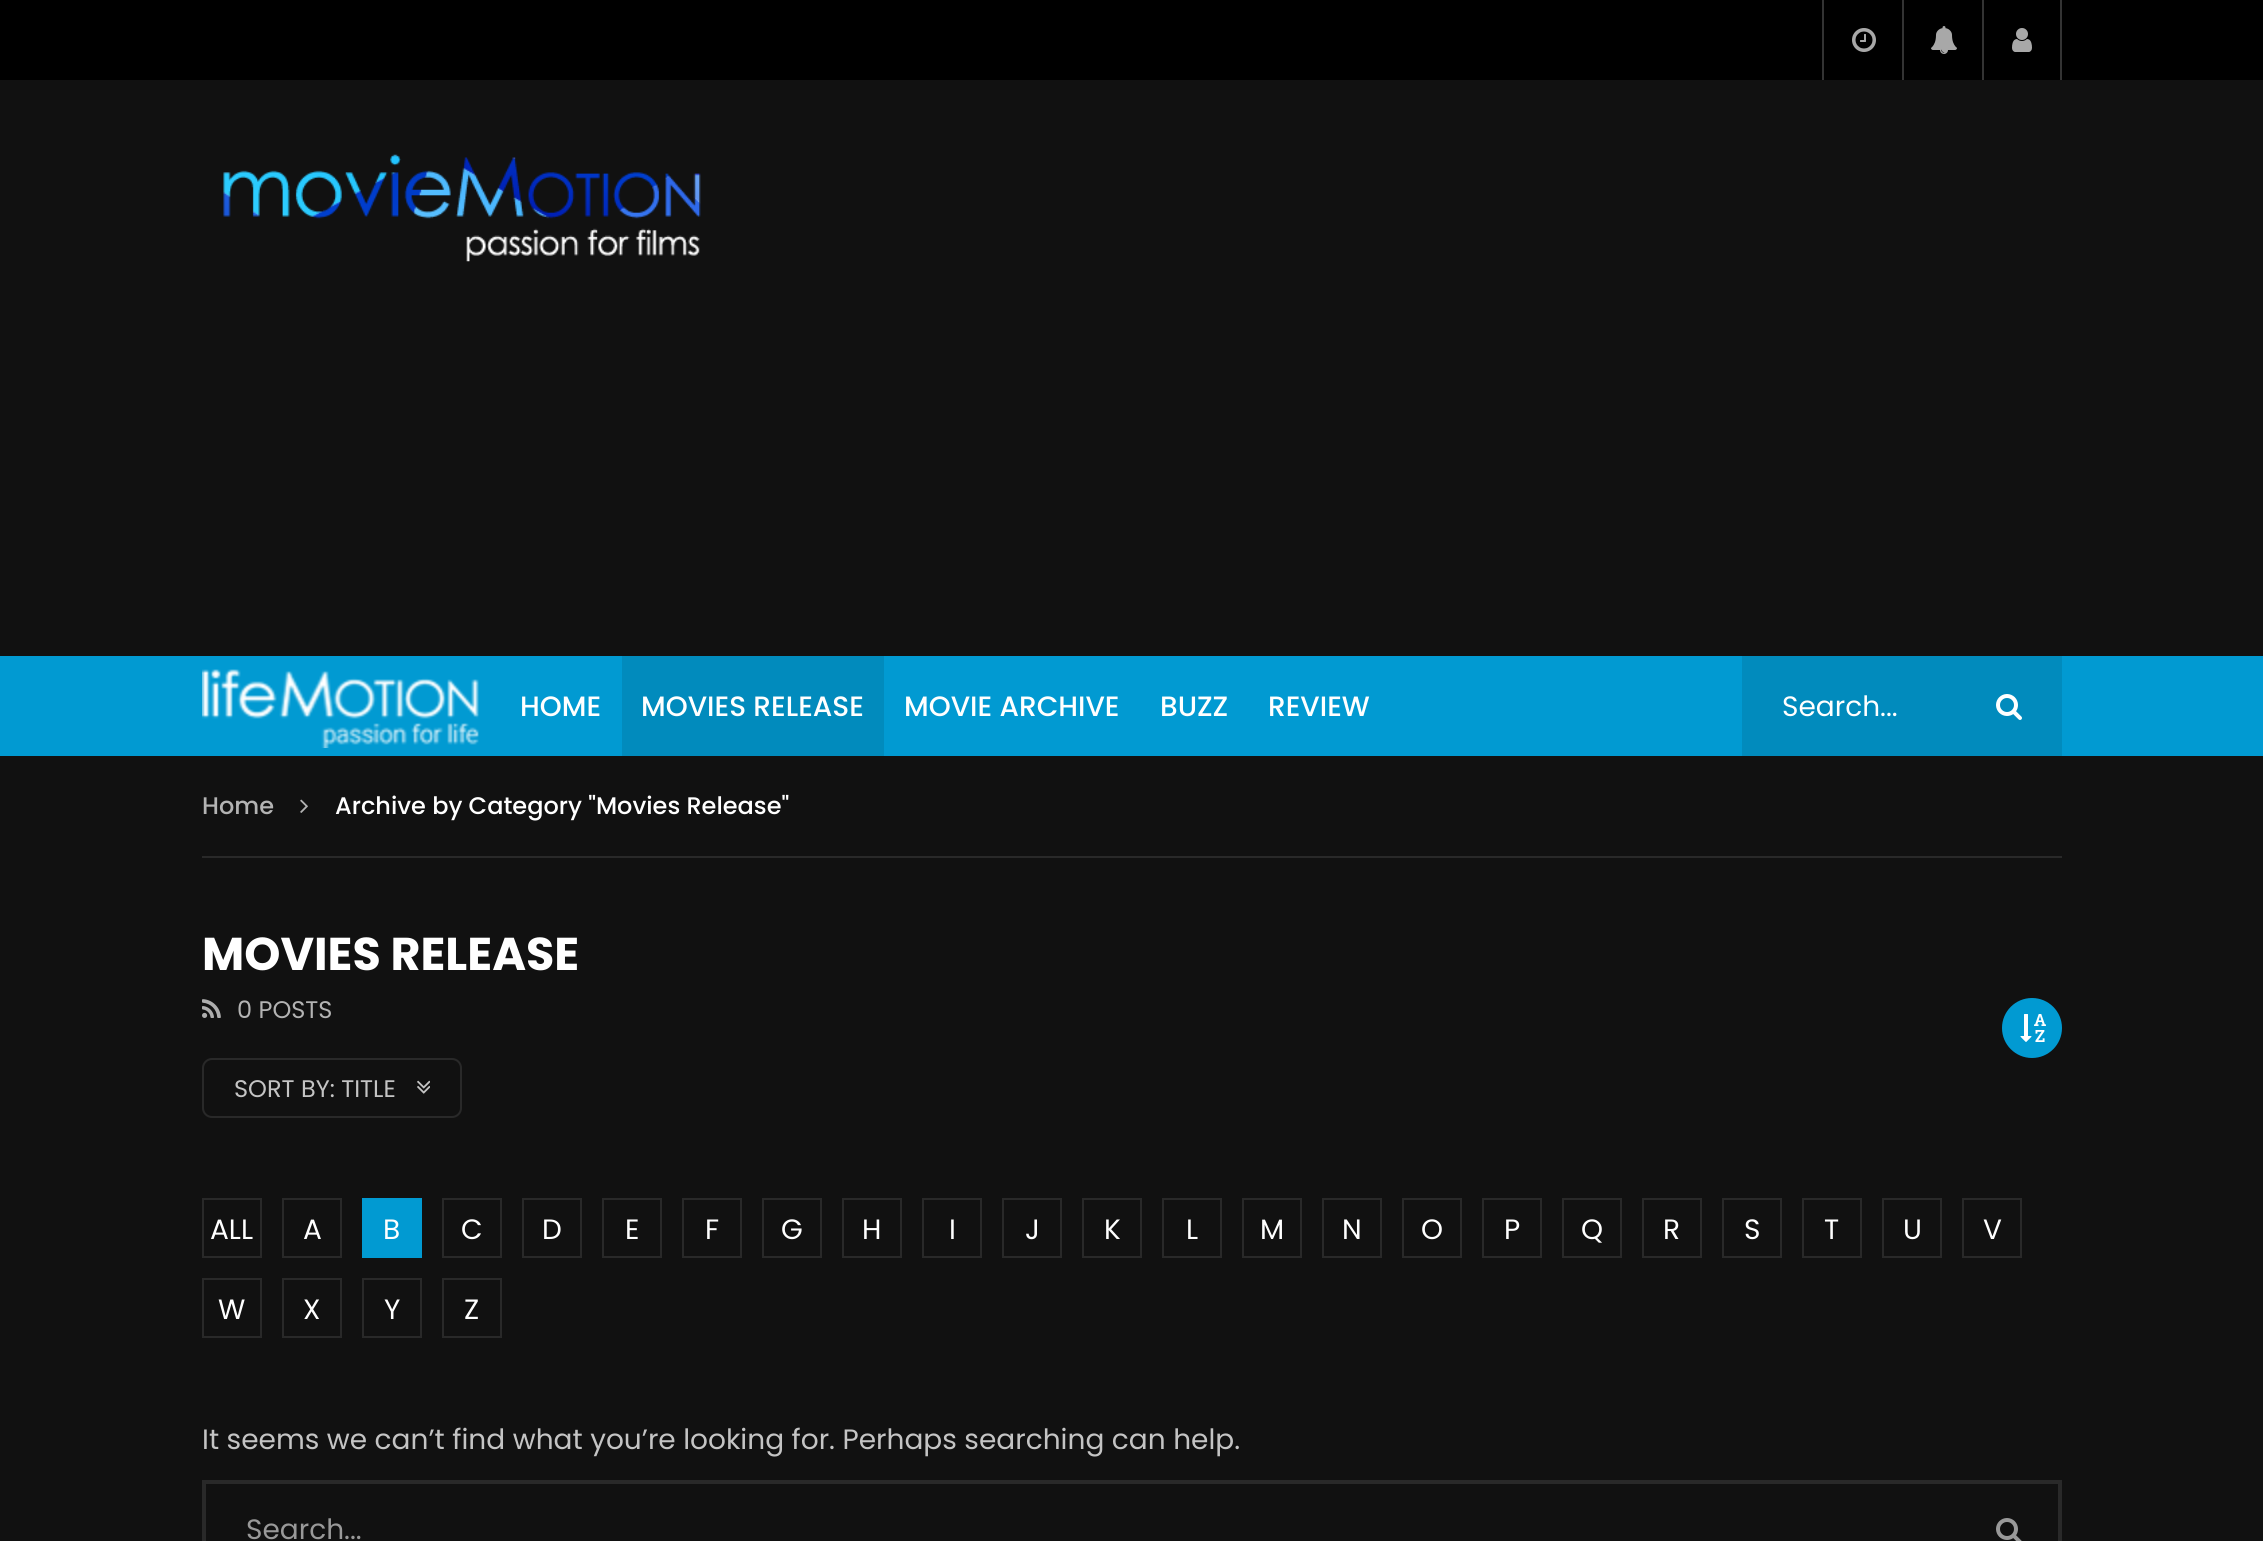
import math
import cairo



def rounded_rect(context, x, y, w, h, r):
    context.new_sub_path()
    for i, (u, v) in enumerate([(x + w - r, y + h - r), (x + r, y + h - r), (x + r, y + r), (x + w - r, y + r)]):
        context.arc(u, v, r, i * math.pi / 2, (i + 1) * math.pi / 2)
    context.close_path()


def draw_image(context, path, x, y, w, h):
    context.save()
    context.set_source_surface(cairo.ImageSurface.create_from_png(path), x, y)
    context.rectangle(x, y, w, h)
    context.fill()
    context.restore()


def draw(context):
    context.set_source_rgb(17 / 255, 17 / 255, 17 / 255)
    context.paint()
    context.set_source_rgb(0, 0, 0)
    context.rectangle(0, 0, 2263, 80)
    context.fill()
    context.set_source_rgb(51 / 255, 51 / 255, 51 / 255)
    context.rectangle(1822, 0, 2, 80)
    context.fill()
    draw_image(context, "images/1.png", 1852, 28, 24, 24)
    context.rectangle(1902, 0, 2, 80)
    context.fill()
    draw_image(context, "images/2.png", 1931, 26, 26, 28)
    context.rectangle(2060, 0, 2, 80)
    context.fill()
    context.rectangle(1982, 0, 2, 80)
    context.fill()
    draw_image(context, "images/3.png", 2012, 28, 20, 24)
    draw_image(context, "images/4.png", 223, 154, 478, 108)
    context.set_source_rgb(1 / 255, 154 / 255, 210 / 255)
    context.rectangle(0, 656, 2263, 100)
    context.fill()
    draw_image(context, "images/5.png", 202, 669, 277, 79)
    context.set_source_rgb(1 / 255, 139 / 255, 189 / 255)
    context.rectangle(622, 656, 262, 100)
    context.fill()
    context.rectangle(1742, 656, 320, 100)
    context.fill()
    draw_image(context, "images/6.png", 1996, 694, 26, 26)
    context.set_source_rgb(41 / 255, 41 / 255, 41 / 255)
    context.rectangle(202, 856, 1860, 2)
    context.fill()
    draw_image(context, "images/7.png", 300, 799, 8, 14)
    draw_image(context, "images/8.png", 202, 999, 19, 19)
    rounded_rect(context, 203, 1059, 258, 58, 9)
    context.stroke()
    draw_image(context, "images/9.png", 417, 1080, 13, 14)
    context.set_source_rgb(1 / 255, 154 / 255, 210 / 255)
    context.arc(2032, 1028, 30, 0, 2 * math.pi)
    context.fill()
    draw_image(context, "images/10.png", 2020, 1014, 26, 28)
    context.rectangle(203, 1199, 58, 58)
    context.set_source_rgb(41 / 255, 41 / 255, 41 / 255)
    context.stroke()
    context.rectangle(283, 1199, 58, 58)
    context.stroke()
    context.set_source_rgb(1 / 255, 154 / 255, 210 / 255)
    context.rectangle(362, 1198, 60, 60)
    context.fill()
    context.rectangle(443, 1199, 58, 58)
    context.set_source_rgb(41 / 255, 41 / 255, 41 / 255)
    context.stroke()
    context.rectangle(523, 1199, 58, 58)
    context.stroke()
    context.rectangle(603, 1199, 58, 58)
    context.stroke()
    context.rectangle(683, 1199, 58, 58)
    context.stroke()
    context.rectangle(763, 1199, 58, 58)
    context.stroke()
    context.rectangle(843, 1199, 58, 58)
    context.stroke()
    context.rectangle(923, 1199, 58, 58)
    context.stroke()
    context.rectangle(1003, 1199, 58, 58)
    context.stroke()
    context.rectangle(1083, 1199, 58, 58)
    context.stroke()
    context.rectangle(1163, 1199, 58, 58)
    context.stroke()
    context.rectangle(1243, 1199, 58, 58)
    context.stroke()
    context.rectangle(1323, 1199, 58, 58)
    context.stroke()
    context.rectangle(1403, 1199, 58, 58)
    context.stroke()
    context.rectangle(1483, 1199, 58, 58)
    context.stroke()
    context.rectangle(1563, 1199, 58, 58)
    context.stroke()
    context.rectangle(1643, 1199, 58, 58)
    context.stroke()
    context.rectangle(1723, 1199, 58, 58)
    context.stroke()
    context.rectangle(1803, 1199, 58, 58)
    context.stroke()
    context.rectangle(1883, 1199, 58, 58)
    context.stroke()
    context.rectangle(1963, 1199, 58, 58)
    context.stroke()
    context.rectangle(203, 1279, 58, 58)
    context.stroke()
    context.rectangle(283, 1279, 58, 58)
    context.stroke()
    context.rectangle(363, 1279, 58, 58)
    context.stroke()
    context.rectangle(443, 1279, 58, 58)
    context.stroke()
    context.rectangle(204, 1482, 1856, 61)
    context.set_line_width(4)
    context.stroke()
    draw_image(context, "images/11.png", 1996, 1518, 26, 23)
    context.select_font_face("Poppins Medium")
    context.set_font_size(28)
    context.set_source_rgb(1, 1, 1)
    context.move_to(520, 716)
    context.show_text("HOME")
    context.move_to(641, 716)
    context.show_text("MOVIES RELEASE")
    context.move_to(904, 716)
    context.show_text("MOVIE ARCHIVE")
    context.move_to(1160, 716)
    context.show_text("BUZZ")
    context.move_to(1268, 716)
    context.show_text("REVIEW")
    context.select_font_face("Poppins")
    context.move_to(1782, 716)
    context.show_text("Search...")
    context.select_font_face("Poppins Medium")
    context.set_font_size(24)
    context.set_source_rgb(179 / 255, 179 / 255, 179 / 255)
    context.move_to(202, 814)
    context.show_text("Home")
    context.set_source_rgb(1, 1, 1)
    context.move_to(335, 814)
    context.show_text("Archive by Category \"Movies Release\"")
    context.select_font_face("Poppins", cairo.FontSlant.NORMAL, cairo.FontWeight.BOLD)
    context.set_font_size(46)
    context.move_to(202, 970)
    context.show_text("MOVIES RELEASE")
    context.select_font_face("Poppins")
    context.set_font_size(24)
    context.set_source_rgb(179 / 255, 179 / 255, 179 / 255)
    context.move_to(237, 1018)
    context.show_text("0 POSTS")
    context.set_source_rgb(196 / 255, 196 / 255, 196 / 255)
    context.move_to(234, 1097)
    context.show_text("SORT BY: TITLE")
    context.set_font_size(28)
    context.set_source_rgb(1, 1, 1)
    context.move_to(210, 1239)
    context.show_text("ALL")
    context.move_to(303, 1239)
    context.show_text("A")
    context.move_to(383, 1239)
    context.show_text("B")
    context.move_to(461, 1239)
    context.show_text("C")
    context.move_to(542, 1239)
    context.show_text("D")
    context.move_to(625, 1239)
    context.show_text("E")
    context.move_to(705, 1239)
    context.show_text("F")
    context.move_to(781, 1239)
    context.show_text("G")
    context.move_to(862, 1239)
    context.show_text("H")
    context.move_to(949, 1239)
    context.show_text("I")
    context.move_to(1025, 1239)
    context.show_text("J")
    context.move_to(1104, 1239)
    context.show_text("K")
    context.move_to(1186, 1239)
    context.show_text("L")
    context.move_to(1260, 1239)
    context.show_text("M")
    context.move_to(1342, 1239)
    context.show_text("N")
    context.move_to(1421, 1239)
    context.show_text("O")
    context.move_to(1504, 1239)
    context.show_text("P")
    context.move_to(1581, 1239)
    context.show_text("Q")
    context.move_to(1663, 1239)
    context.show_text("R")
    context.move_to(1744, 1239)
    context.show_text("S")
    context.move_to(1824, 1239)
    context.show_text("T")
    context.move_to(1903, 1239)
    context.show_text("U")
    context.move_to(1983, 1239)
    context.show_text("V")
    context.move_to(218, 1319)
    context.show_text("W")
    context.move_to(303, 1319)
    context.show_text("X")
    context.move_to(384, 1319)
    context.show_text("Y")
    context.move_to(464, 1319)
    context.show_text("Z")
    context.set_source_rgb(196 / 255, 196 / 255, 196 / 255)
    context.move_to(202, 1449)
    context.show_text("It seems we can’t find what you’re looking for. Perhaps searching can help.")
    context.set_source_rgb(153 / 255, 153 / 255, 153 / 255)
    context.move_to(246, 1539)
    context.show_text("Search...")


surface = cairo.ImageSurface(cairo.Format.RGB24, 2263, 1541)
context = cairo.Context(surface)
options = cairo.FontOptions()
options.set_hint_metrics(cairo.HintMetrics.OFF)
options.set_hint_style(cairo.HintStyle.NONE)
context.set_font_options(options)
context.set_miter_limit(4)
draw(context)
surface.write_to_png("out.png")
